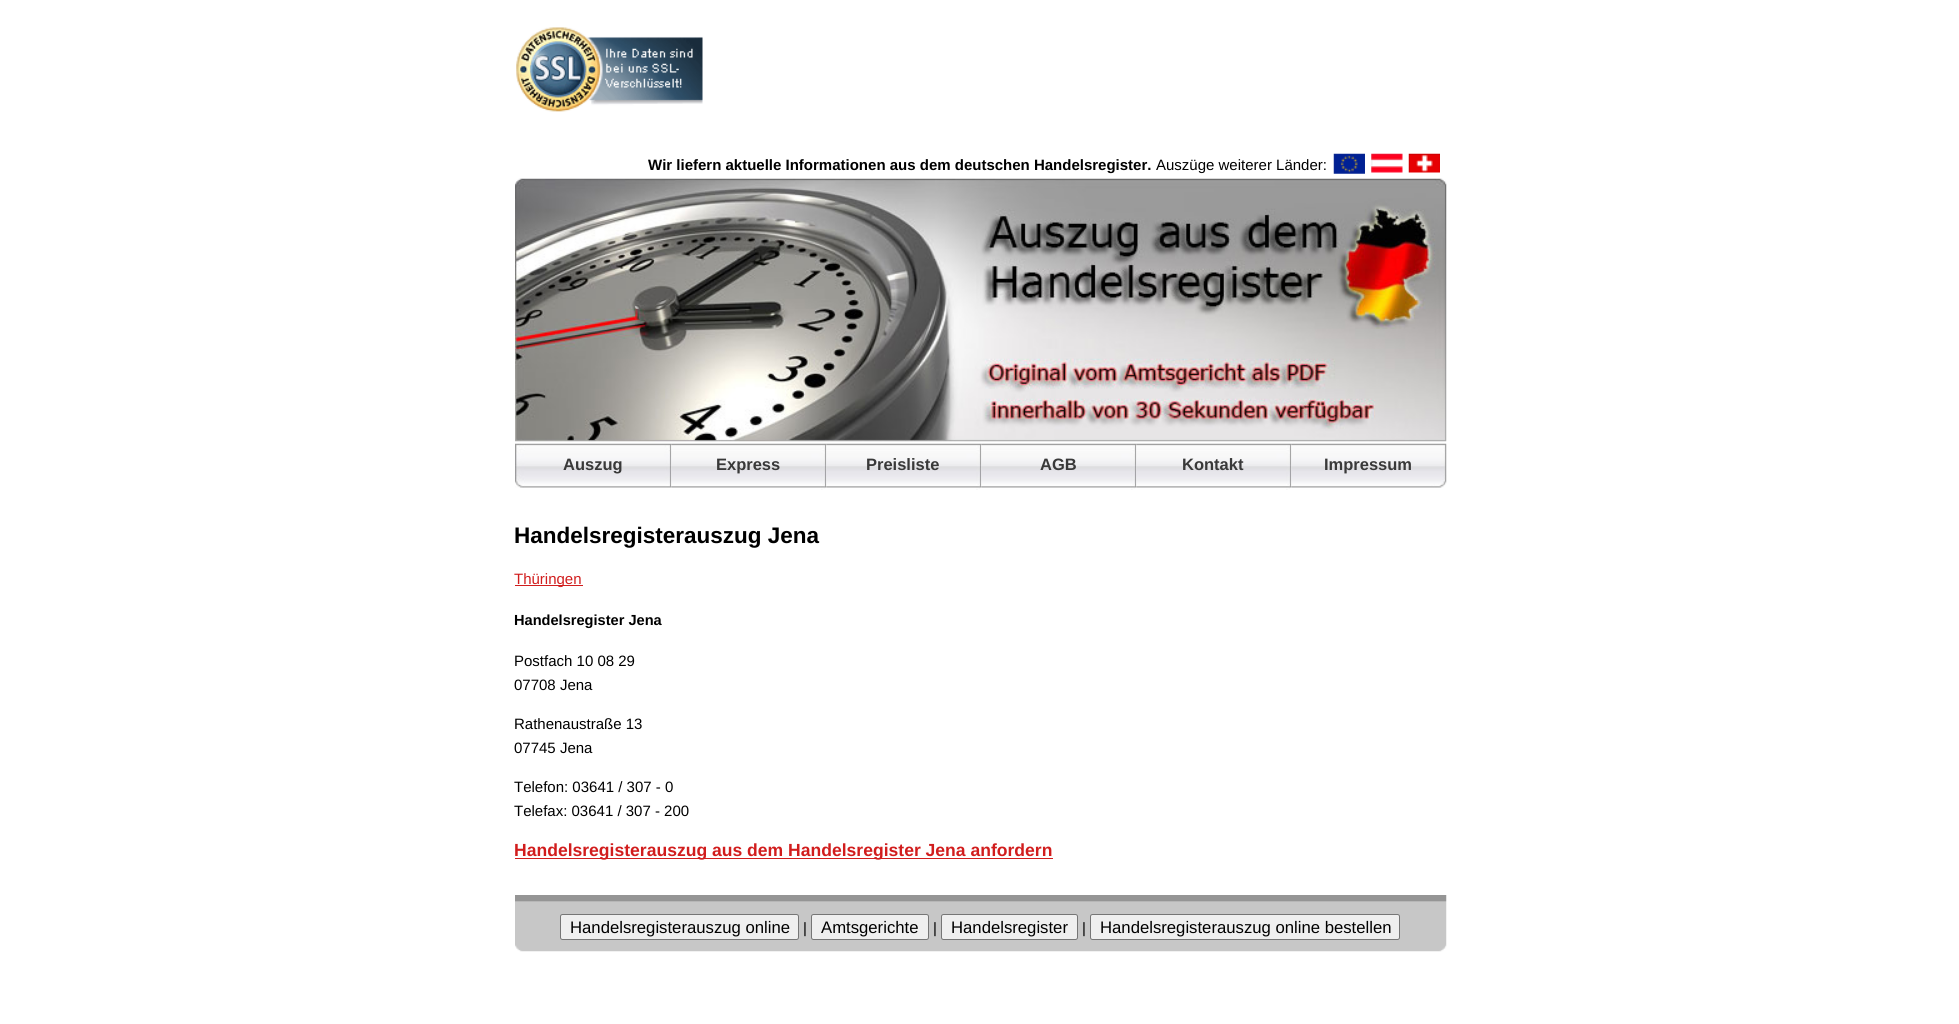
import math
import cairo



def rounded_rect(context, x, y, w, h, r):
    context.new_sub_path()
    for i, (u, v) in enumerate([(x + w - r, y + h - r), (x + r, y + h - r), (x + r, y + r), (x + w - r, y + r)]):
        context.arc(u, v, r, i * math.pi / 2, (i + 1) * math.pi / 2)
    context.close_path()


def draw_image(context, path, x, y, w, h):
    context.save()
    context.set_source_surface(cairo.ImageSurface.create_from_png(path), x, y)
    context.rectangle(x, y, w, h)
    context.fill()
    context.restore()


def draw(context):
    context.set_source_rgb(1, 1, 1)
    context.paint()
    draw_image(context, "images/1.png", 516, 27, 187, 85)
    draw_image(context, "images/2.png", 515, 178, 932, 264)
    draw_image(context, "images/3.png", 1333, 153, 32, 21)
    draw_image(context, "images/4.png", 1371, 153, 32, 20)
    draw_image(context, "images/5.png", 1408, 153, 32, 20)
    draw_image(context, "images/6.png", 515, 443, 157, 45)
    draw_image(context, "images/7.png", 671, 443, 156, 47)
    draw_image(context, "images/8.png", 826, 443, 156, 47)
    draw_image(context, "images/9.png", 981, 443, 156, 47)
    draw_image(context, "images/9.png", 1136, 443, 156, 47)
    draw_image(context, "images/10.png", 1291, 443, 156, 45)
    context.set_source_rgb(209 / 255, 29 / 255, 29 / 255)
    context.rectangle(515, 585, 68, 1)
    context.fill()
    context.rectangle(515, 858, 538, 1)
    context.fill()
    draw_image(context, "images/11.png", 515, 895, 932, 57)
    context.set_source_rgb(239 / 255, 239 / 255, 239 / 255)
    rounded_rect(context, 560.5, 914.5, 238, 25, 2)
    context.fill_preserve()
    context.set_source_rgb(118 / 255, 118 / 255, 118 / 255)
    context.set_line_width(1)
    context.stroke()
    context.set_source_rgb(239 / 255, 239 / 255, 239 / 255)
    rounded_rect(context, 811.5, 914.5, 117, 25, 2)
    context.fill_preserve()
    context.set_source_rgb(118 / 255, 118 / 255, 118 / 255)
    context.stroke()
    context.set_source_rgb(239 / 255, 239 / 255, 239 / 255)
    rounded_rect(context, 941.5, 914.5, 136, 25, 2)
    context.fill_preserve()
    context.set_source_rgb(118 / 255, 118 / 255, 118 / 255)
    context.stroke()
    context.set_source_rgb(239 / 255, 239 / 255, 239 / 255)
    rounded_rect(context, 1090.5, 914.5, 309, 25, 2)
    context.fill_preserve()
    context.set_source_rgb(118 / 255, 118 / 255, 118 / 255)
    context.stroke()
    context.select_font_face("Liberation Sans", cairo.FontSlant.NORMAL, cairo.FontWeight.BOLD)
    context.set_font_size(15)
    context.set_source_rgb(0, 0, 0)
    context.move_to(648, 170)
    context.show_text("Wir liefern aktuelle Informationen aus dem deutschen Handelsregister.")
    context.select_font_face("Liberation Sans")
    context.move_to(1156, 170)
    context.show_text("Auszüge weiterer Länder:")
    context.select_font_face("Liberation Sans", cairo.FontSlant.NORMAL, cairo.FontWeight.BOLD)
    context.set_font_size(16.5)
    context.set_source_rgb(57 / 255, 57 / 255, 57 / 255)
    context.move_to(563, 470)
    context.show_text("Auszug")
    context.move_to(716, 470)
    context.show_text("Express")
    context.move_to(866, 470)
    context.show_text("Preisliste")
    context.move_to(1040, 470)
    context.show_text("AGB")
    context.move_to(1182, 470)
    context.show_text("Kontakt")
    context.move_to(1324, 470)
    context.show_text("Impressum")
    context.set_font_size(22.5)
    context.set_source_rgb(0, 0, 0)
    context.move_to(514, 543)
    context.show_text("Handelsregisterauszug Jena")
    context.select_font_face("Liberation Sans")
    context.set_font_size(15)
    context.set_source_rgb(209 / 255, 29 / 255, 29 / 255)
    context.move_to(514, 584)
    context.show_text("Thüringen")
    context.select_font_face("Liberation Sans", cairo.FontSlant.NORMAL, cairo.FontWeight.BOLD)
    context.set_font_size(14.6)
    context.set_source_rgb(0, 0, 0)
    context.move_to(514, 625)
    context.show_text("Handelsregister Jena")
    context.select_font_face("Liberation Sans")
    context.set_font_size(15)
    context.move_to(514, 666)
    context.show_text("Postfach 10 08 29")
    context.move_to(514, 690)
    context.show_text("07708 Jena")
    context.move_to(514, 729)
    context.show_text("Rathenaustraße 13")
    context.move_to(514, 753)
    context.show_text("07745 Jena")
    context.move_to(514, 792)
    context.show_text("Telefon: 03641 / 307 - 0")
    context.move_to(514, 816)
    context.show_text("Telefax: 03641 / 307 - 200")
    context.select_font_face("Liberation Sans", cairo.FontSlant.NORMAL, cairo.FontWeight.BOLD)
    context.set_font_size(17.55)
    context.set_source_rgb(209 / 255, 29 / 255, 29 / 255)
    context.move_to(514, 856)
    context.show_text("Handelsregisterauszug aus dem Handelsregister Jena anfordern")
    context.select_font_face("Liberation Sans")
    context.set_font_size(16.7)
    context.set_source_rgb(0, 0, 0)
    context.move_to(570, 933)
    context.show_text("Handelsregisterauszug online")
    context.set_font_size(15)
    context.move_to(803, 933)
    context.show_text("|")
    context.set_font_size(16.7)
    context.move_to(821, 933)
    context.show_text("Amtsgerichte")
    context.set_font_size(15)
    context.move_to(933, 933)
    context.show_text("|")
    context.set_font_size(16.7)
    context.move_to(951, 933)
    context.show_text("Handelsregister")
    context.set_font_size(15)
    context.move_to(1082, 933)
    context.show_text("|")
    context.set_font_size(16.7)
    context.move_to(1100, 933)
    context.show_text("Handelsregisterauszug online bestellen")


surface = cairo.ImageSurface(cairo.Format.RGB24, 1959, 1024)
context = cairo.Context(surface)
options = cairo.FontOptions()
options.set_hint_metrics(cairo.HintMetrics.OFF)
options.set_hint_style(cairo.HintStyle.NONE)
context.set_font_options(options)
context.set_miter_limit(4)
draw(context)
surface.write_to_png("out.png")
